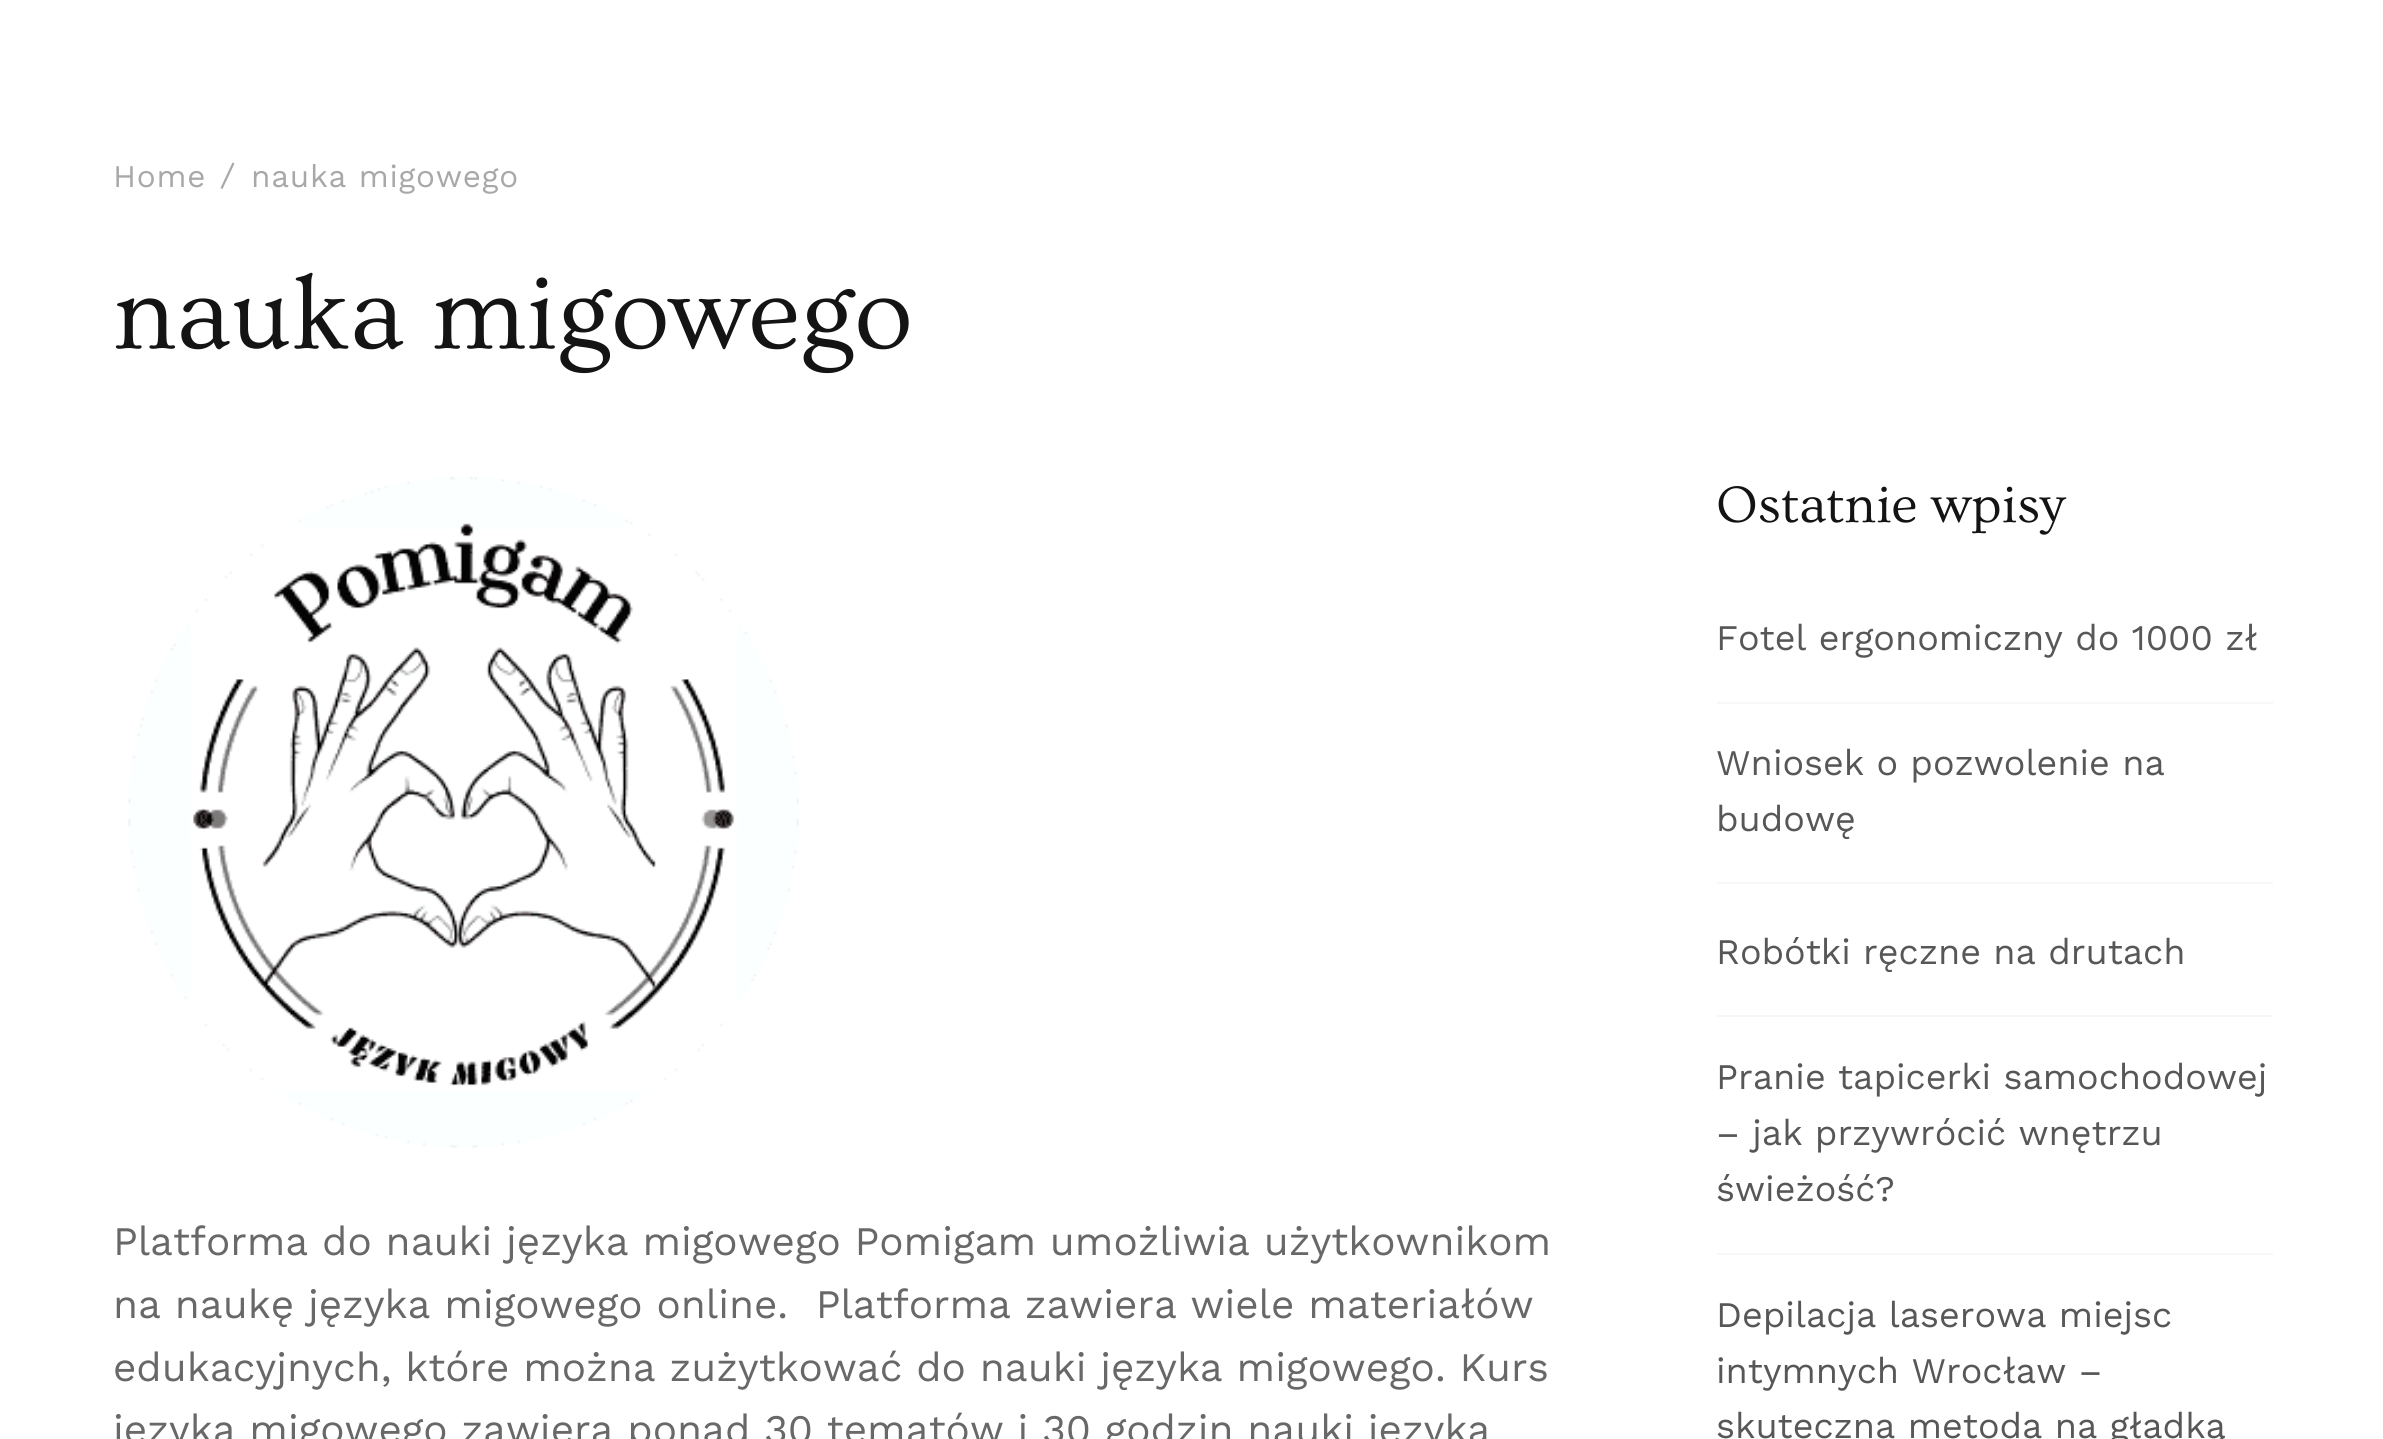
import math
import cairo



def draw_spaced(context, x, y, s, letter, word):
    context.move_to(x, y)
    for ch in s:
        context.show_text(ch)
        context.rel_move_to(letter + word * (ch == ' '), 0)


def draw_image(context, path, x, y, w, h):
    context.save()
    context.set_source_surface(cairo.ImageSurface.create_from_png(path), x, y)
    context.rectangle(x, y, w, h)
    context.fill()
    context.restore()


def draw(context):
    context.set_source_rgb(1, 1, 1)
    context.paint()
    context.set_source_rgb(168 / 255, 168 / 255, 168 / 255)
    context.new_path()
    context.move_to(232.5, 162.5)
    context.line_to(234.5, 163.5)
    context.line_to(222.5, 189)
    context.line_to(220.5, 188)
    context.close_path()
    context.fill()
    draw_image(context, "images/1.png", 128, 477, 671, 671)
    context.set_source_rgb(247 / 255, 247 / 255, 247 / 255)
    context.rectangle(1717, 702, 556, 2)
    context.fill()
    context.rectangle(1717, 882, 556, 2)
    context.fill()
    context.rectangle(1717, 1015, 556, 2)
    context.fill()
    context.rectangle(1717, 1253, 556, 2)
    context.fill()
    context.select_font_face("Work Sans")
    context.set_font_size(31.5)
    context.set_source_rgb(168 / 255, 168 / 255, 168 / 255)
    draw_spaced(context, 113, 187, "Home", 0.75, 0)
    draw_spaced(context, 251, 187, "nauka migowego", 0.75, 0)
    context.select_font_face("Ovo")
    context.set_font_size(107.75)
    context.set_source_rgb(20 / 255, 20 / 255, 20 / 255)
    context.move_to(113, 348)
    context.show_text("nauka migowego")
    context.select_font_face("Work Sans")
    context.set_font_size(40.5)
    context.set_source_rgb(104 / 255, 104 / 255, 104 / 255)
    context.move_to(113, 1255)
    context.show_text("Platforma do nauki języka migowego Pomigam umożliwia użytkownikom")
    context.move_to(113, 1318)
    context.show_text("na naukę języka migowego online.  Platforma zawiera wiele materiałów")
    context.move_to(113, 1381)
    context.show_text("edukacyjnych, które można zużytkować do nauki języka migowego. Kurs")
    context.move_to(113, 1443)
    context.show_text("języka migowego zawiera ponad 30 tematów i 30 godzin nauki języka")
    context.select_font_face("Ovo")
    context.set_font_size(54)
    context.set_source_rgb(20 / 255, 20 / 255, 20 / 255)
    context.move_to(1716, 522)
    context.show_text("Ostatnie wpisy")
    context.select_font_face("Work Sans")
    context.set_font_size(36)
    context.set_source_rgb(87 / 255, 87 / 255, 87 / 255)
    context.move_to(1716, 650)
    context.show_text("Fotel ergonomiczny do 1000 zł")
    context.move_to(1716, 775)
    context.show_text("Wniosek o pozwolenie na")
    context.move_to(1716, 831)
    context.show_text("budowę")
    context.move_to(1716, 964)
    context.show_text("Robótki ręczne na drutach")
    context.move_to(1716, 1089)
    context.show_text("Pranie tapicerki samochodowej")
    context.move_to(1716, 1145)
    context.show_text("– jak przywrócić wnętrzu")
    context.move_to(1716, 1201)
    context.show_text("świeżość?")
    context.move_to(1716, 1327)
    context.show_text("Depilacja laserowa miejsc")
    context.move_to(1716, 1383)
    context.show_text("intymnych Wrocław –")
    context.move_to(1716, 1438)
    context.show_text("skuteczna metoda na gładką")


surface = cairo.ImageSurface(cairo.Format.RGB24, 2383, 1439)
context = cairo.Context(surface)
options = cairo.FontOptions()
options.set_hint_metrics(cairo.HintMetrics.OFF)
options.set_hint_style(cairo.HintStyle.NONE)
context.set_font_options(options)
context.set_miter_limit(4)
draw(context)
surface.write_to_png("out.png")
